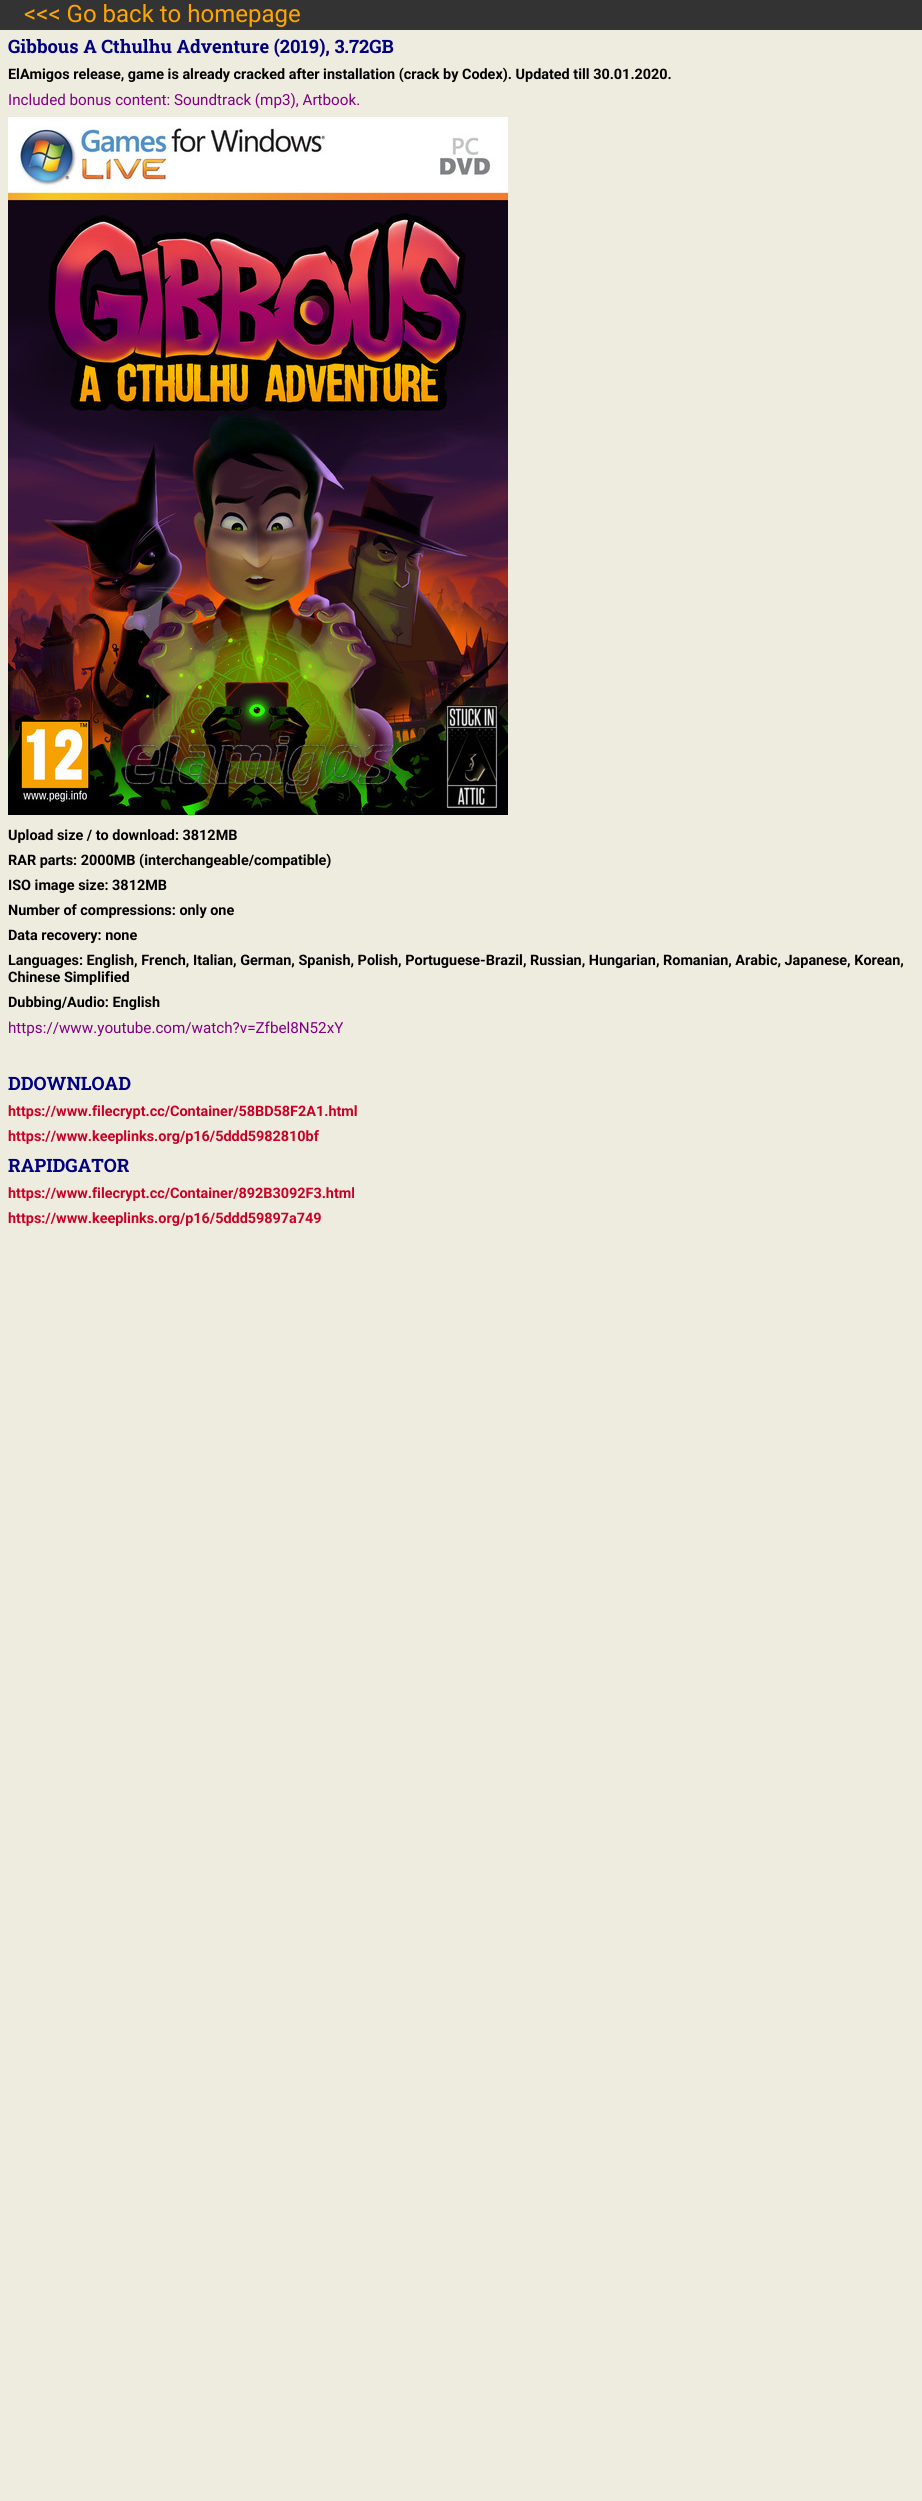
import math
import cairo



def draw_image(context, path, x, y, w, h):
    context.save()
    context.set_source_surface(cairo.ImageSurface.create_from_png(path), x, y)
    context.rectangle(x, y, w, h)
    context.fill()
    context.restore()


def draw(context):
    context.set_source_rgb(238 / 255, 235 / 255, 223 / 255)
    context.paint()
    context.set_source_rgb(51 / 255, 51 / 255, 51 / 255)
    context.rectangle(0, 0, 922, 30)
    context.fill()
    draw_image(context, "images/1.png", 8, 117, 500, 698)
    context.select_font_face("Roboto")
    context.set_font_size(24)
    context.set_source_rgb(1, 165 / 255, 0)
    context.move_to(24, 22)
    context.show_text("<<< Go back to homepage")
    context.select_font_face("Roboto Slab", cairo.FontSlant.NORMAL, cairo.FontWeight.BOLD)
    context.set_font_size(18.4)
    context.set_source_rgb(0, 0, 128 / 255)
    context.move_to(8, 53)
    context.show_text("Gibbous A Cthulhu Adventure (2019), 3.72GB")
    context.select_font_face("Roboto", cairo.FontSlant.NORMAL, cairo.FontWeight.BOLD)
    context.set_font_size(14.4)
    context.set_source_rgb(0, 0, 0)
    context.move_to(8, 79)
    context.show_text("ElAmigos release, game is already cracked after installation (crack by Codex). Updated till 30.01.2020.")
    context.select_font_face("Roboto")
    context.set_font_size(15.2)
    context.set_source_rgb(128 / 255, 0, 128 / 255)
    context.move_to(8, 105)
    context.show_text("Included bonus content: Soundtrack (mp3), Artbook.")
    context.select_font_face("Roboto", cairo.FontSlant.NORMAL, cairo.FontWeight.BOLD)
    context.set_font_size(14.4)
    context.set_source_rgb(0, 0, 0)
    context.move_to(8, 840)
    context.show_text("Upload size / to download: 3812MB")
    context.move_to(8, 865)
    context.show_text("RAR parts: 2000MB (interchangeable/compatible)")
    context.move_to(8, 890)
    context.show_text("ISO image size: 3812MB")
    context.move_to(8, 915)
    context.show_text("Number of compressions: only one")
    context.move_to(8, 940)
    context.show_text("Data recovery: none")
    context.move_to(8, 965)
    context.show_text("Languages: English, French, Italian, German, Spanish, Polish, Portuguese-Brazil, Russian, Hungarian, Romanian, Arabic, Japanese, Korean,")
    context.move_to(8, 982)
    context.show_text("Chinese Simplified")
    context.move_to(8, 1007)
    context.show_text("Dubbing/Audio: English")
    context.select_font_face("Roboto")
    context.set_font_size(15.2)
    context.set_source_rgb(128 / 255, 0, 128 / 255)
    context.move_to(8, 1033)
    context.show_text("https://www.youtube.com/watch?v=Zfbel8N52xY")
    context.select_font_face("Roboto Slab", cairo.FontSlant.NORMAL, cairo.FontWeight.BOLD)
    context.set_font_size(18.4)
    context.set_source_rgb(0, 0, 128 / 255)
    context.move_to(8, 1090)
    context.show_text("DDOWNLOAD")
    context.select_font_face("Roboto", cairo.FontSlant.NORMAL, cairo.FontWeight.BOLD)
    context.set_font_size(14.4)
    context.set_source_rgb(202 / 255, 0, 36 / 255)
    context.move_to(8, 1116)
    context.show_text("https://www.filecrypt.cc/Container/58BD58F2A1.html")
    context.move_to(8, 1141)
    context.show_text("https://www.keeplinks.org/p16/5ddd5982810bf")
    context.select_font_face("Roboto Slab", cairo.FontSlant.NORMAL, cairo.FontWeight.BOLD)
    context.set_font_size(18.4)
    context.set_source_rgb(0, 0, 128 / 255)
    context.move_to(8, 1172)
    context.show_text("RAPIDGATOR")
    context.select_font_face("Roboto", cairo.FontSlant.NORMAL, cairo.FontWeight.BOLD)
    context.set_font_size(14.4)
    context.set_source_rgb(202 / 255, 0, 36 / 255)
    context.move_to(8, 1198)
    context.show_text("https://www.filecrypt.cc/Container/892B3092F3.html")
    context.move_to(8, 1223)
    context.show_text("https://www.keeplinks.org/p16/5ddd59897a749")


surface = cairo.ImageSurface(cairo.Format.RGB24, 922, 2501)
context = cairo.Context(surface)
options = cairo.FontOptions()
options.set_hint_metrics(cairo.HintMetrics.OFF)
options.set_hint_style(cairo.HintStyle.NONE)
context.set_font_options(options)
context.set_miter_limit(4)
draw(context)
surface.write_to_png("out.png")
